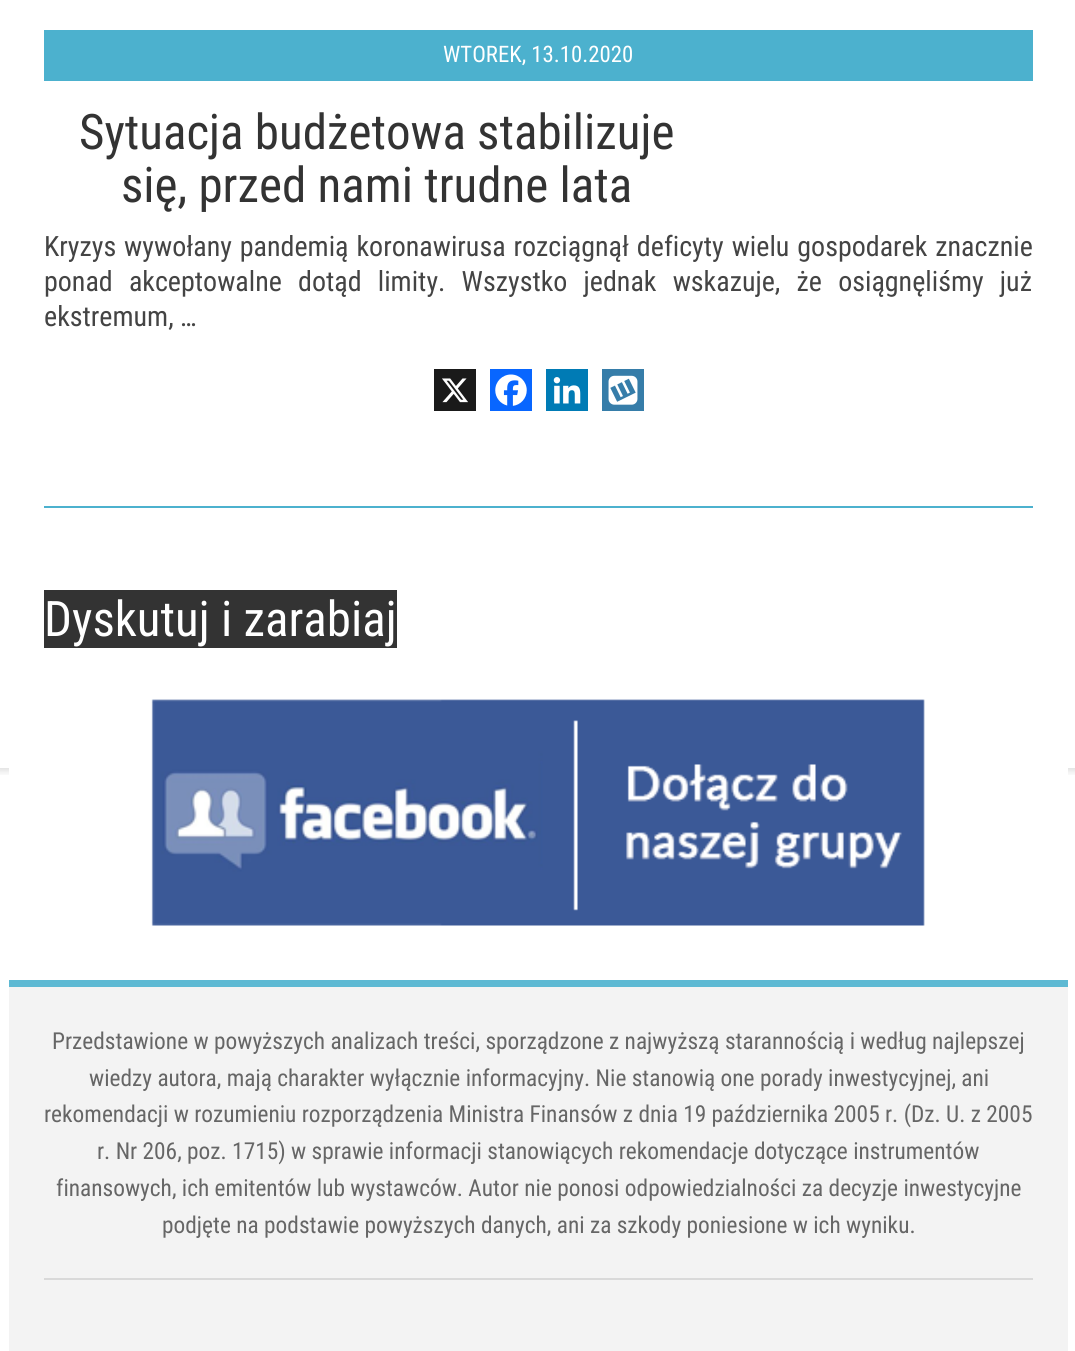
import math
import cairo



def draw_spaced(context, x, y, s, letter, word):
    context.move_to(x, y)
    for ch in s:
        context.show_text(ch)
        context.rel_move_to(letter + word * (ch == ' '), 0)


def rounded_rect(context, x, y, w, h, r):
    context.new_sub_path()
    for i, (u, v) in enumerate([(x + w - r, y + h - r), (x + r, y + h - r), (x + r, y + r), (x + w - r, y + r)]):
        context.arc(u, v, r, i * math.pi / 2, (i + 1) * math.pi / 2)
    context.close_path()


def draw_shadow(context, x, y, w, h, r, blur, alpha):
    context.push_group_with_content(cairo.Content.ALPHA)
    context.set_operator(cairo.Operator.SOURCE)
    for i in range(15, -16, -2):
        e = blur * i / 6
        if min(w, h) + 2 * e > 0:
            context.set_source_rgba(0, 0, 0, alpha * math.erfc((i - 1) / 8.5) / 2)
            rounded_rect(context, x - e, y - e, w + 2 * e, h + 2 * e, max(0, min(r + e + blur * .6, min(w, h) / 2 + e)))
            context.fill()
    context.mask(context.pop_group())


def draw_image(context, path, x, y, w, h):
    context.save()
    context.set_source_surface(cairo.ImageSurface.create_from_png(path), x, y)
    context.rectangle(x, y, w, h)
    context.fill()
    context.restore()


def draw(context):
    context.set_source_rgb(1, 1, 1)
    context.paint()
    context.save()
    context.rectangle(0, 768, 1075, 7)
    context.clip()
    context.set_source_rgb(0, 0, 0)
    draw_shadow(context, -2, -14, 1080, 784, 0, 4.5, 0.16)
    context.restore()
    context.set_source_rgb(1, 1, 1)
    context.rectangle(9, 768, 1059, 9)
    context.fill()
    context.set_source_rgb(76 / 255, 177 / 255, 206 / 255)
    context.rectangle(44, 506, 989, 2)
    context.fill()
    context.rectangle(44, 30, 989, 51)
    context.fill()
    context.set_source_rgb(26 / 255, 26 / 255, 26 / 255)
    context.rectangle(434, 369, 42, 42)
    context.fill()
    draw_image(context, "images/1.png", 442, 378, 26, 25)
    context.set_source_rgb(8 / 255, 102 / 255, 1)
    context.rectangle(490, 369, 42, 42)
    context.fill()
    draw_image(context, "images/2.png", 495, 374, 32, 32)
    context.set_source_rgb(0, 123 / 255, 181 / 255)
    context.rectangle(546, 369, 42, 42)
    context.fill()
    draw_image(context, "images/3.png", 553, 377, 28, 27)
    context.set_source_rgb(54 / 255, 125 / 255, 169 / 255)
    context.rectangle(602, 369, 42, 42)
    context.fill()
    draw_image(context, "images/4.png", 608, 375, 30, 30)
    context.set_source_rgb(51 / 255, 51 / 255, 51 / 255)
    context.rectangle(44, 590, 353, 58)
    context.fill()
    draw_image(context, "images/5.png", 151, 699, 774, 227)
    context.set_source_rgb(243 / 255, 243 / 255, 243 / 255)
    context.rectangle(9, 987, 1059, 364)
    context.fill()
    context.set_source_rgb(93 / 255, 185 / 255, 211 / 255)
    context.rectangle(9, 980, 1059, 7)
    context.fill()
    context.set_source_rgb(217 / 255, 217 / 255, 217 / 255)
    context.rectangle(44, 1278, 989, 2)
    context.fill()
    context.select_font_face("Roboto Condensed")
    context.set_font_size(22.75)
    context.set_source_rgb(1, 1, 1)
    context.move_to(443, 62)
    context.show_text("WTOREK, 13.10.2020")
    context.set_font_size(49)
    context.set_source_rgb(51 / 255, 51 / 255, 51 / 255)
    context.move_to(79, 149)
    context.show_text("Sytuacja budżetowa stabilizuje")
    context.move_to(121, 202)
    context.show_text("się, przed nami trudne lata")
    context.set_font_size(28)
    context.set_source_rgb(68 / 255, 68 / 255, 68 / 255)
    draw_spaced(context, 44, 256, "Kryzys wywołany pandemią koronawirusa rozciągnął deficyty wielu gospodarek znacznie", 0, 1.5)
    draw_spaced(context, 44, 291, "ponad akceptowalne dotąd limity. Wszystko jednak wskazuje, że osiągnęliśmy już", 0, 9.75)
    context.move_to(44, 326)
    context.show_text("ekstremum, …")
    context.set_font_size(49)
    context.set_source_rgb(1, 1, 1)
    context.move_to(44, 636)
    context.show_text("Dyskutuj i zarabiaj")
    context.set_font_size(23.35)
    context.set_source_rgb(102 / 255, 102 / 255, 102 / 255)
    context.move_to(52, 1049)
    context.show_text("Przedstawione w powyższych analizach treści, sporządzone z najwyższą starannością i według najlepszej")
    context.move_to(89, 1086)
    context.show_text("wiedzy autora, mają charakter wyłącznie informacyjny. Nie stanowią one porady inwestycyjnej, ani")
    context.move_to(44, 1122)
    context.show_text("rekomendacji w rozumieniu rozporządzenia Ministra Finansów z dnia 19 października 2005 r. (Dz. U. z 2005")
    context.move_to(97, 1159)
    context.show_text("r. Nr 206, poz. 1715) w sprawie informacji stanowiących rekomendacje dotyczące instrumentów")
    context.move_to(56, 1196)
    context.show_text("finansowych, ich emitentów lub wystawców. Autor nie ponosi odpowiedzialności za decyzje inwestycyjne")
    context.move_to(162, 1233)
    context.show_text("podjęte na podstawie powyższych danych, ani za szkody poniesione w ich wyniku.")


surface = cairo.ImageSurface(cairo.Format.RGB24, 1075, 1351)
context = cairo.Context(surface)
options = cairo.FontOptions()
options.set_hint_metrics(cairo.HintMetrics.OFF)
options.set_hint_style(cairo.HintStyle.NONE)
context.set_font_options(options)
context.set_miter_limit(4)
draw(context)
surface.write_to_png("out.png")
